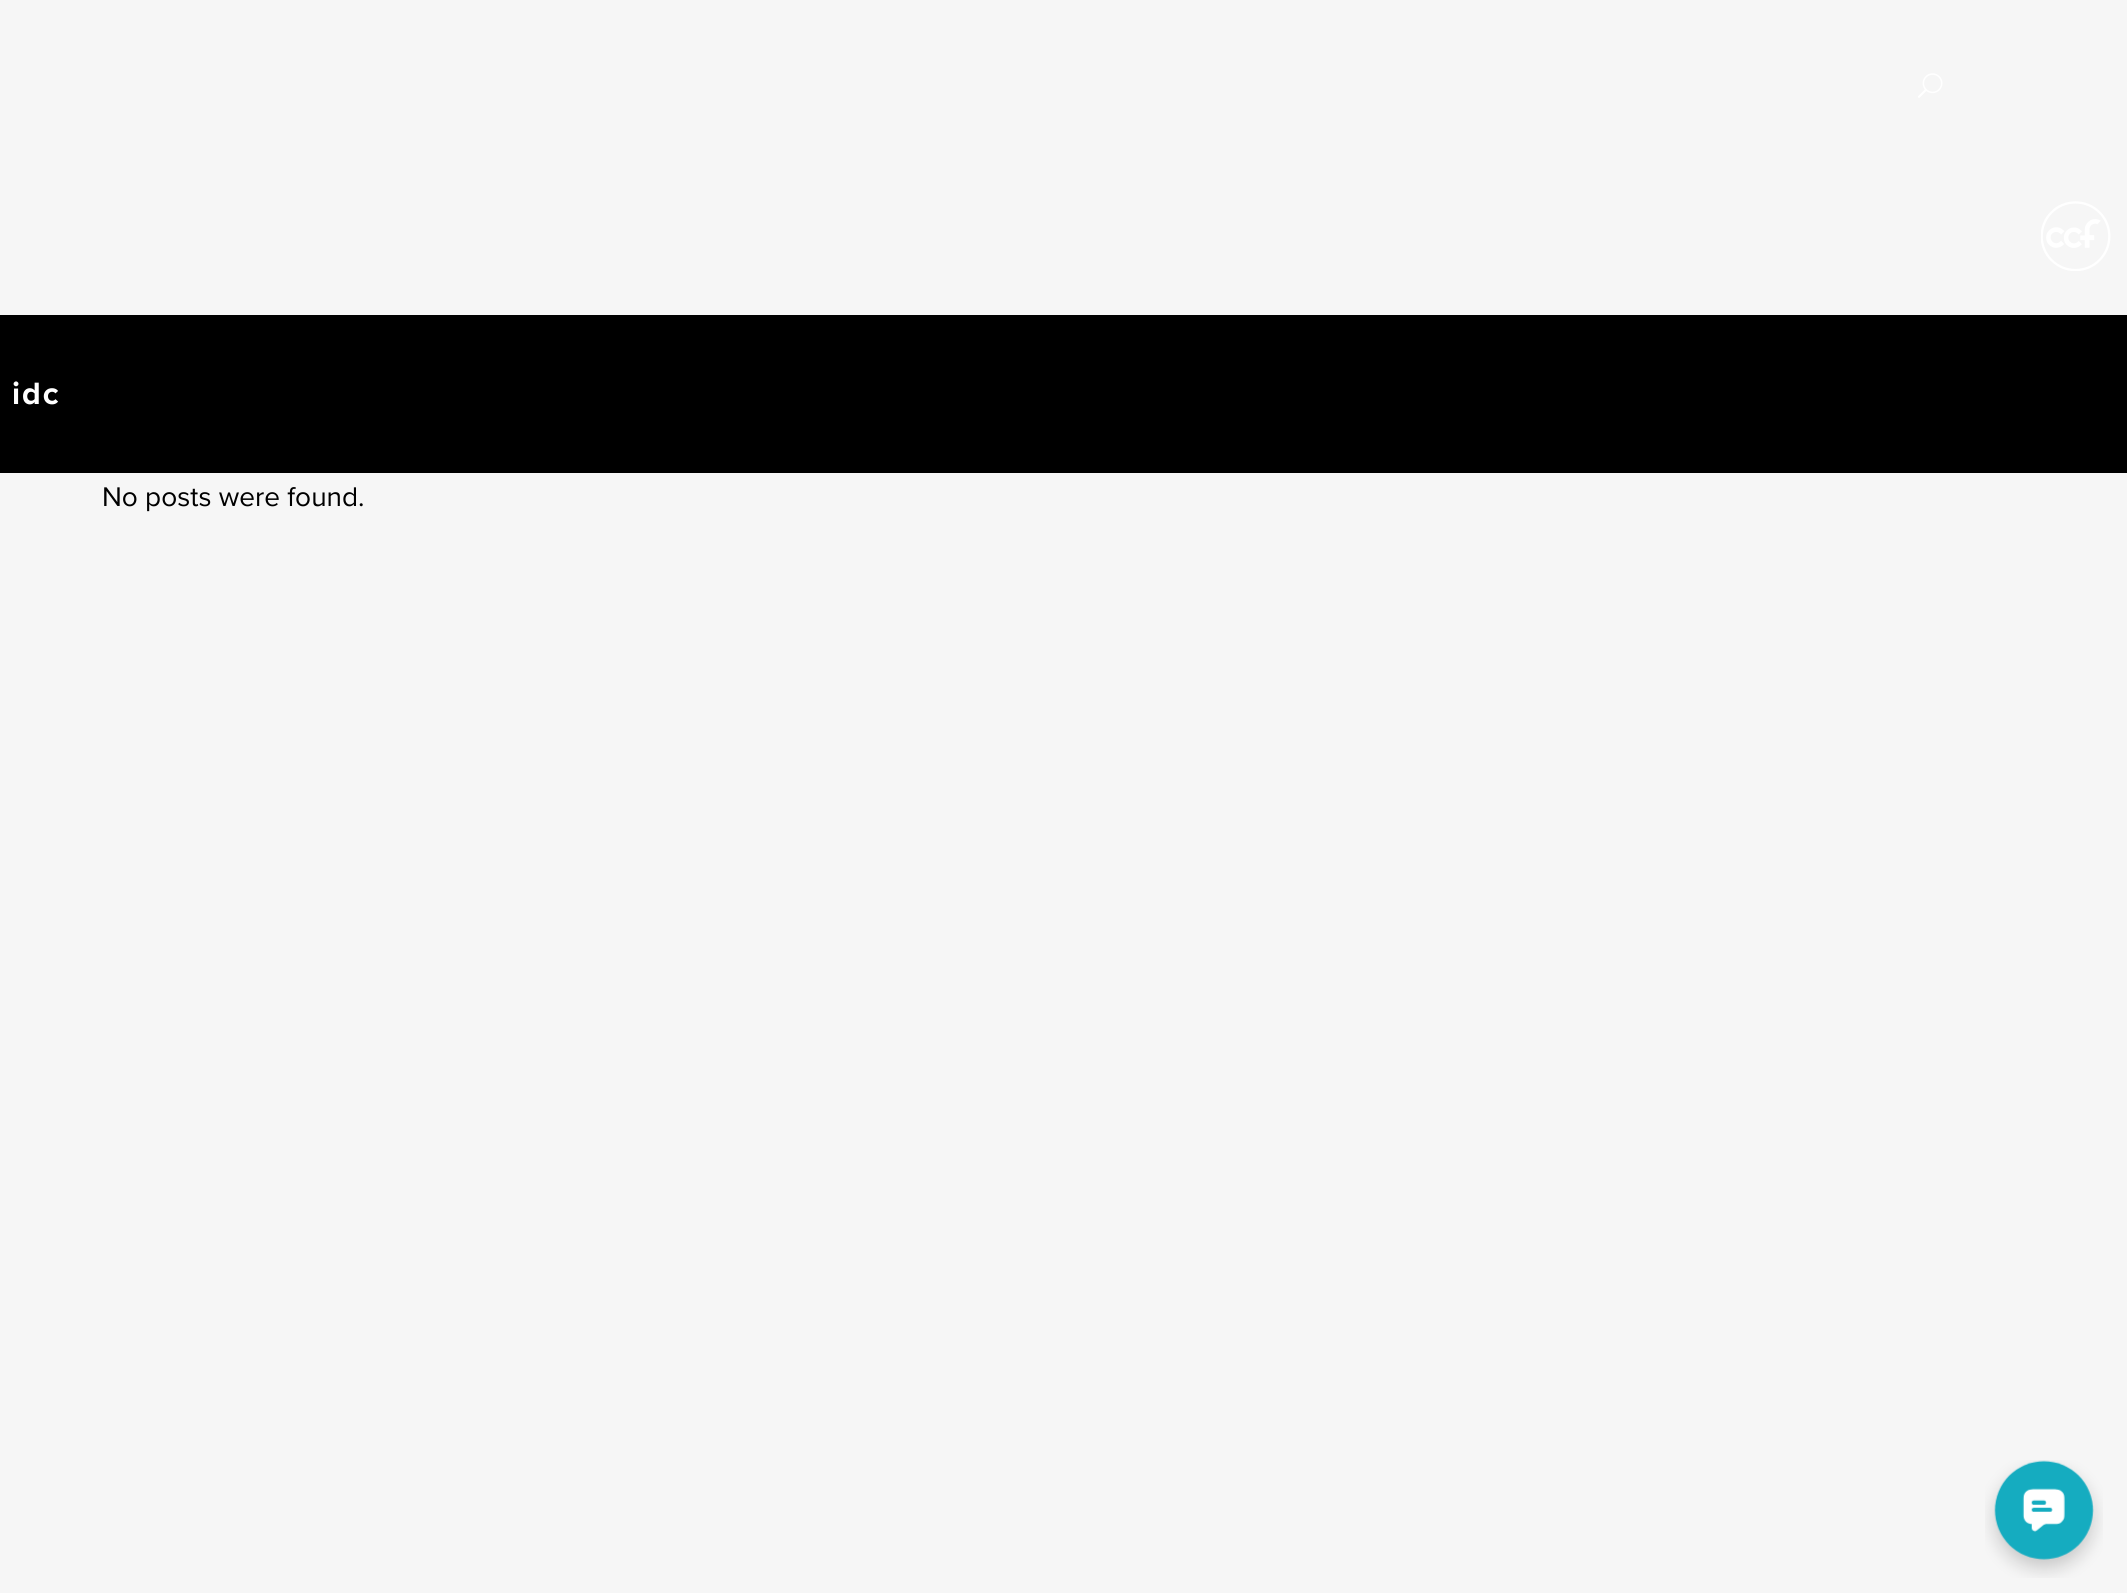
import math
import cairo



def draw_spaced(context, x, y, s, letter, word):
    context.move_to(x, y)
    for ch in s:
        context.show_text(ch)
        context.rel_move_to(letter + word * (ch == ' '), 0)


def draw_image(context, path, x, y, w, h):
    context.save()
    context.set_source_surface(cairo.ImageSurface.create_from_png(path), x, y)
    context.rectangle(x, y, w, h)
    context.fill()
    context.restore()


def draw(context):
    context.set_source_rgb(246 / 255, 246 / 255, 246 / 255)
    context.paint()
    draw_image(context, "images/1.png", 1918, 73, 25, 25)
    draw_image(context, "images/2.png", 2041, 201, 70, 70)
    context.set_source_rgb(0, 0, 0)
    context.rectangle(0, 315, 2127, 158)
    context.fill()
    draw_image(context, "images/3.png", 1985, 1460, 118, 118)
    context.select_font_face("Proxima Nova", cairo.FontSlant.NORMAL, cairo.FontWeight.BOLD)
    context.set_font_size(32)
    context.set_source_rgb(1, 1, 1)
    draw_spaced(context, 12, 404, "idc", 2, 0)
    context.select_font_face("Proxima Nova")
    context.set_font_size(28)
    context.set_source_rgb(0, 0, 0)
    context.move_to(102, 506)
    context.show_text("No posts were found.")


surface = cairo.ImageSurface(cairo.Format.RGB24, 2127, 1593)
context = cairo.Context(surface)
options = cairo.FontOptions()
options.set_hint_metrics(cairo.HintMetrics.OFF)
options.set_hint_style(cairo.HintStyle.NONE)
context.set_font_options(options)
context.set_miter_limit(4)
draw(context)
surface.write_to_png("out.png")
